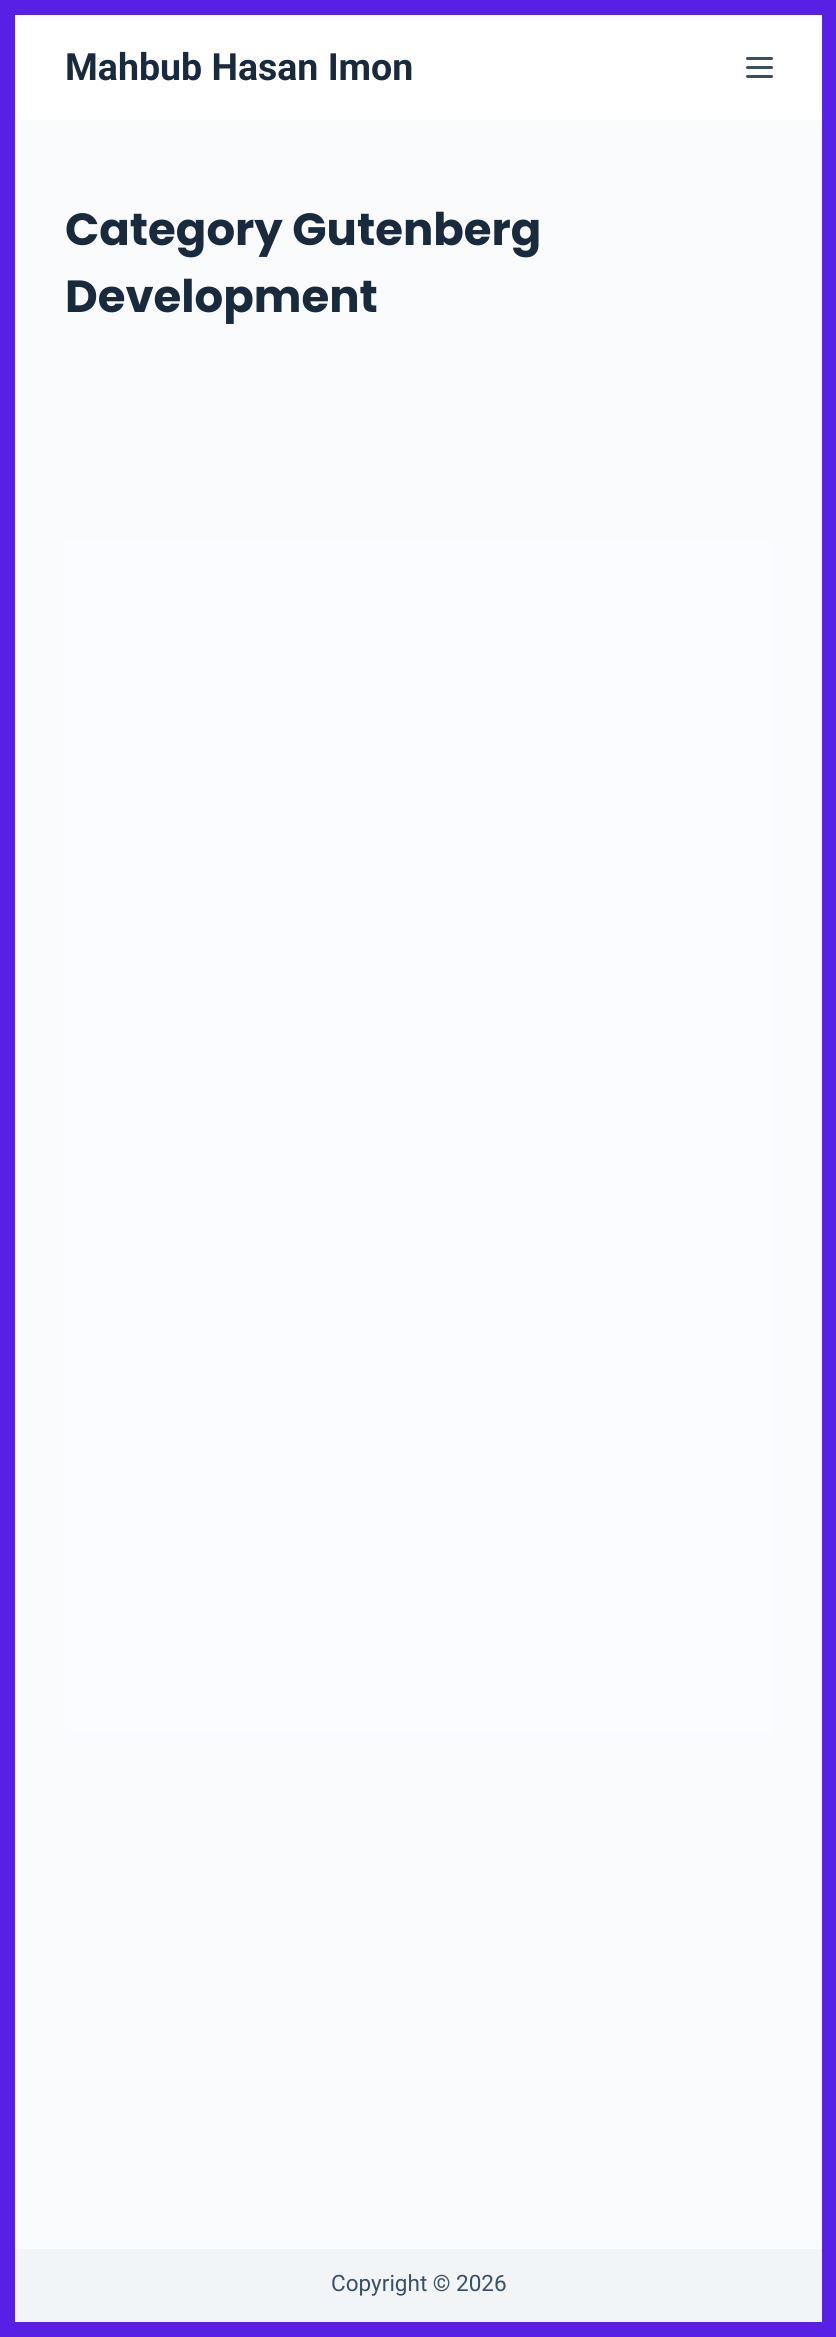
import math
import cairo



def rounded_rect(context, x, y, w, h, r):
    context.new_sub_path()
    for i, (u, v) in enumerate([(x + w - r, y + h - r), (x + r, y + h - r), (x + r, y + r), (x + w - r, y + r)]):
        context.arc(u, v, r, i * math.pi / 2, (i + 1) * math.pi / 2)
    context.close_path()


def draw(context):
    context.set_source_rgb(250 / 255, 251 / 255, 252 / 255)
    context.paint()
    context.rectangle(7.5, 7.5, 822, 2322)
    context.set_source_rgb(88 / 255, 32 / 255, 229 / 255)
    context.set_line_width(15)
    context.stroke()
    context.set_source_rgb(1, 1, 1)
    context.rectangle(15, 15, 807, 105)
    context.fill()
    context.set_source_rgb(58 / 255, 79 / 255, 102 / 255)
    rounded_rect(context, 746, 57, 27, 3, 1.5)
    context.fill()
    rounded_rect(context, 746, 66, 27, 3, 1.5)
    context.fill()
    rounded_rect(context, 746, 75, 27, 3, 1.5)
    context.fill()
    context.set_source_rgb(251 / 255, 252 / 255, 1)
    context.rectangle(65, 540, 708, 1194)
    context.fill()
    context.set_source_rgb(242 / 255, 245 / 255, 247 / 255)
    context.rectangle(15, 2249, 807, 73)
    context.fill()
    context.select_font_face("Roboto", cairo.FontSlant.NORMAL, cairo.FontWeight.BOLD)
    context.set_font_size(37.5)
    context.set_source_rgb(25 / 255, 42 / 255, 61 / 255)
    context.move_to(65, 80)
    context.show_text("Mahbub Hasan Imon")
    context.select_font_face("Poppins", cairo.FontSlant.NORMAL, cairo.FontWeight.BOLD)
    context.set_font_size(45)
    context.move_to(65, 245)
    context.show_text("Category Gutenberg")
    context.move_to(65, 312)
    context.show_text("Development")
    context.select_font_face("Roboto")
    context.set_font_size(22.5)
    context.set_source_rgb(58 / 255, 79 / 255, 102 / 255)
    context.move_to(331, 2291)
    context.show_text("Copyright © 2026")


surface = cairo.ImageSurface(cairo.Format.RGB24, 836, 2337)
context = cairo.Context(surface)
options = cairo.FontOptions()
options.set_hint_metrics(cairo.HintMetrics.OFF)
options.set_hint_style(cairo.HintStyle.NONE)
context.set_font_options(options)
context.set_miter_limit(4)
draw(context)
surface.write_to_png("out.png")
